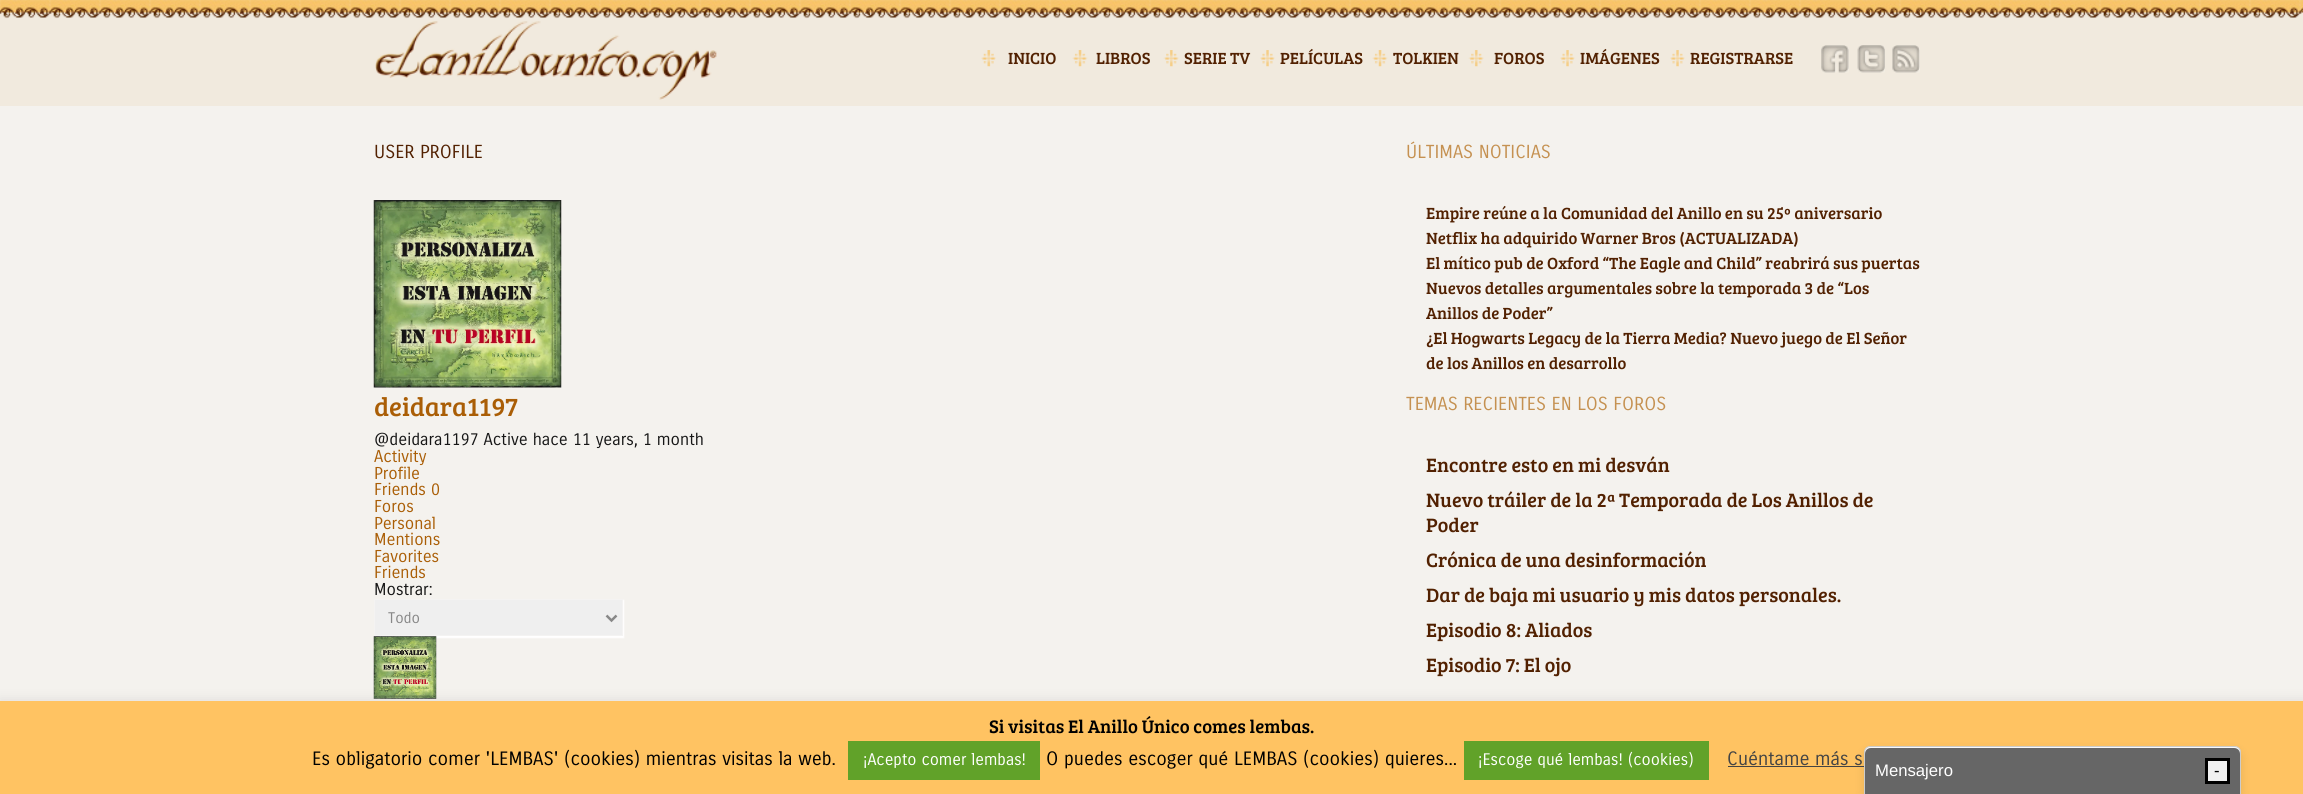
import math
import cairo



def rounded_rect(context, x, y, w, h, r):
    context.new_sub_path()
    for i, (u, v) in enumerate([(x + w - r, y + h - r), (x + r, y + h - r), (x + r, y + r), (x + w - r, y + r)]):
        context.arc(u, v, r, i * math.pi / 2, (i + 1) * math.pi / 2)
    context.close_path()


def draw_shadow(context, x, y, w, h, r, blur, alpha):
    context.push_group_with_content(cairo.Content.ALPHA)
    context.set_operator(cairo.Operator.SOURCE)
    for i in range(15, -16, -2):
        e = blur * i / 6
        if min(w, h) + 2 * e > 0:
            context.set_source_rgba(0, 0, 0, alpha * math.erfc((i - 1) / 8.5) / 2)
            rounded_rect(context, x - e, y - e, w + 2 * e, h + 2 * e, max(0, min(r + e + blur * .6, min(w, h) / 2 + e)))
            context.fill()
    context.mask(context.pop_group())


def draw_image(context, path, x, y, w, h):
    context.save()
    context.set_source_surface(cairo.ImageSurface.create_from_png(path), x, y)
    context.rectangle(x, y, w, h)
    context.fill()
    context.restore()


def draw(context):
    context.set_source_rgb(244 / 255, 242 / 255, 238 / 255)
    context.paint()
    context.set_source_rgb(241 / 255, 234 / 255, 222 / 255)
    context.rectangle(0, 0, 2303, 106)
    context.fill()
    draw_image(context, "images/1.png", 0, 0, 2303, 19)
    draw_image(context, "images/2.png", 375, 21, 342, 79)
    draw_image(context, "images/3.png", 981, 50, 15, 17)
    draw_image(context, "images/4.png", 1072, 50, 16, 17)
    draw_image(context, "images/5.png", 1163, 50, 16, 17)
    draw_image(context, "images/6.png", 1260, 50, 15, 17)
    draw_image(context, "images/7.png", 1372, 50, 16, 17)
    draw_image(context, "images/8.png", 1468, 50, 16, 17)
    draw_image(context, "images/9.png", 1560, 50, 15, 17)
    draw_image(context, "images/10.png", 1670, 50, 15, 17)
    draw_image(context, "images/11.png", 1821, 45, 28, 28)
    draw_image(context, "images/12.png", 1857, 45, 28, 28)
    draw_image(context, "images/13.png", 1892, 45, 28, 28)
    draw_image(context, "images/14.png", 373, 200, 189, 188)
    context.set_source_rgb(1, 1, 1)
    draw_shadow(context, 375, 600, 249, 38, 0, 0.5, 1)
    context.set_source_rgb(239 / 255, 239 / 255, 239 / 255)
    context.rectangle(374.5, 599.5, 248, 36)
    context.fill_preserve()
    context.set_source_rgb(244 / 255, 243 / 255, 242 / 255)
    context.set_line_width(1)
    context.stroke()
    context.new_path()
    context.move_to(606.5, 615.5)
    context.line_to(611.5, 620.5)
    context.line_to(616.5, 615.5)
    context.set_source_rgb(136 / 255, 136 / 255, 136 / 255)
    context.set_line_width(2.5)
    context.stroke()
    draw_image(context, "images/15.png", 373, 636, 64, 63)
    context.set_source_rgb(172 / 255, 171 / 255, 171 / 255)
    draw_shadow(context, 0, 700, 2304, 94, 0, 6, 0.3)
    context.set_source_rgb(1, 195 / 255, 98 / 255)
    context.rectangle(0, 701, 2303, 93)
    context.fill()
    context.set_source_rgb(97 / 255, 162 / 255, 41 / 255)
    context.rectangle(848, 741, 192, 39)
    context.fill()
    context.rectangle(1464, 741, 245, 39)
    context.fill()
    context.set_source_rgb(68 / 255, 68 / 255, 68 / 255)
    context.rectangle(1728, 766, 136, 1)
    context.fill()
    context.set_source_rgb(0, 0, 0)
    draw_shadow(context, 1864, 751, 377, 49, 6, 5, 0.1)
    context.set_source_rgb(249 / 255, 249 / 255, 249 / 255)
    context.new_path()
    context.move_to(1870, 746.5)
    context.line_to(2235, 746.5)
    context.curve_to(2238, 746.5, 2240.5, 749, 2240.5, 752)
    context.line_to(2240.5, 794.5)
    context.line_to(1864.5, 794.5)
    context.line_to(1864.5, 752)
    context.curve_to(1864.5, 749, 1867, 746.5, 1870, 746.5)
    context.close_path()
    context.fill_preserve()
    context.set_source_rgb(204 / 255, 204 / 255, 204 / 255)
    context.set_line_width(1)
    context.stroke()
    context.save()
    context.new_path()
    context.move_to(1870, 748)
    context.line_to(2235, 748)
    context.curve_to(2238, 748, 2240, 750, 2240, 753)
    context.line_to(2240, 794)
    context.line_to(1865, 794)
    context.line_to(1865, 753)
    context.curve_to(1865, 750, 1867, 748, 1870, 748)
    context.close_path()
    context.clip()
    context.set_source_rgb(102 / 255, 102 / 255, 102 / 255)
    context.new_path()
    context.move_to(1871, 748)
    context.line_to(2234, 748)
    context.curve_to(2237.5, 748, 2240, 750.5, 2240, 754)
    context.line_to(2240, 794)
    context.line_to(1865, 794)
    context.line_to(1865, 754)
    context.curve_to(1865, 750.5, 1867.5, 748, 1871, 748)
    context.close_path()
    context.fill()
    context.restore()
    context.set_source_rgb(240 / 255, 240 / 255, 240 / 255)
    context.rectangle(2206.5, 759.5, 22, 23)
    context.fill_preserve()
    context.set_source_rgb(0, 0, 0)
    context.set_line_width(3)
    context.stroke()
    context.select_font_face("Bree Serif")
    context.set_font_size(16.7)
    context.set_source_rgb(82 / 255, 33 / 255, 1 / 255)
    context.move_to(1008, 64)
    context.show_text("INICIO")
    context.move_to(1096, 64)
    context.show_text("LIBROS")
    context.move_to(1184, 64)
    context.show_text("SERIE TV")
    context.move_to(1280, 64)
    context.show_text("PELÍCULAS")
    context.move_to(1393, 64)
    context.show_text("TOLKIEN")
    context.move_to(1494, 64)
    context.show_text("FOROS")
    context.move_to(1580, 64)
    context.show_text("IMÁGENES")
    context.move_to(1690, 64)
    context.show_text("REGISTRARSE")
    context.select_font_face("Carrois Gothic")
    context.set_font_size(18.3)
    context.move_to(374, 158)
    context.show_text("USER PROFILE")
    context.select_font_face("Bree Serif")
    context.set_font_size(26.5)
    context.set_source_rgb(170 / 255, 94 / 255, 6 / 255)
    context.move_to(374, 416)
    context.show_text("deidara1197")
    context.select_font_face("Carrois Gothic")
    context.set_font_size(16.7)
    context.set_source_rgb(23 / 255, 23 / 255, 23 / 255)
    context.move_to(374, 445)
    context.show_text("@deidara1197 Active hace 11 years, 1 month")
    context.set_source_rgb(170 / 255, 94 / 255, 6 / 255)
    context.move_to(374, 462)
    context.show_text("Activity")
    context.move_to(374, 479)
    context.show_text("Profile")
    context.move_to(374, 495)
    context.show_text("Friends 0")
    context.move_to(374, 512)
    context.show_text("Foros")
    context.move_to(374, 529)
    context.show_text("Personal")
    context.move_to(374, 545)
    context.show_text("Mentions")
    context.move_to(374, 562)
    context.show_text("Favorites")
    context.move_to(374, 578)
    context.show_text("Friends")
    context.set_source_rgb(23 / 255, 23 / 255, 23 / 255)
    context.move_to(374, 595)
    context.show_text("Mostrar:")
    context.set_font_size(15)
    context.set_source_rgb(136 / 255, 136 / 255, 136 / 255)
    context.move_to(388, 623)
    context.show_text("Todo")
    context.set_font_size(18.3)
    context.set_source_rgb(197 / 255, 145 / 255, 81 / 255)
    context.move_to(1406, 158)
    context.show_text("ÚLTIMAS NOTICIAS")
    context.select_font_face("Bree Serif")
    context.set_font_size(16.7)
    context.set_source_rgb(82 / 255, 33 / 255, 1 / 255)
    context.move_to(1426, 219)
    context.show_text("Empire reúne a la Comunidad del Anillo en su 25º aniversario")
    context.move_to(1426, 244)
    context.show_text("Netflix ha adquirido Warner Bros (ACTUALIZADA)")
    context.move_to(1426, 269)
    context.show_text("El mítico pub de Oxford “The Eagle and Child” reabrirá sus puertas")
    context.move_to(1426, 294)
    context.show_text("Nuevos detalles argumentales sobre la temporada 3 de “Los")
    context.move_to(1426, 319)
    context.show_text("Anillos de Poder”")
    context.move_to(1426, 344)
    context.show_text("¿El Hogwarts Legacy de la Tierra Media? Nuevo juego de El Señor")
    context.move_to(1426, 369)
    context.show_text("de los Anillos en desarrollo")
    context.select_font_face("Carrois Gothic")
    context.set_font_size(18.3)
    context.set_source_rgb(197 / 255, 145 / 255, 81 / 255)
    context.move_to(1406, 410)
    context.show_text("TEMAS RECIENTES EN LOS FOROS")
    context.select_font_face("Bree Serif")
    context.set_font_size(20)
    context.set_source_rgb(82 / 255, 33 / 255, 1 / 255)
    context.move_to(1426, 472)
    context.show_text("Encontre esto en mi desván")
    context.move_to(1426, 507)
    context.show_text("Nuevo tráiler de la 2ª Temporada de Los Anillos de")
    context.move_to(1426, 532)
    context.show_text("Poder")
    context.move_to(1426, 567)
    context.show_text("Crónica de una desinformación")
    context.move_to(1426, 602)
    context.show_text("Dar de baja mi usuario y mis datos personales.")
    context.move_to(1426, 637)
    context.show_text("Episodio 8: Aliados")
    context.move_to(1426, 672)
    context.show_text("Episodio 7: El ojo")
    context.set_font_size(18.75)
    context.set_source_rgb(0, 0, 0)
    context.move_to(989, 733)
    context.show_text("Si visitas El Anillo Único comes lembas.")
    context.select_font_face("Carrois Gothic")
    context.move_to(312, 765)
    context.show_text("Es obligatorio comer 'LEMBAS' (cookies) mientras visitas la web.")
    context.set_font_size(16.25)
    context.set_source_rgb(1, 1, 1)
    context.move_to(863, 765)
    context.show_text("¡Acepto comer lembas!")
    context.set_font_size(18.75)
    context.set_source_rgb(0, 0, 0)
    context.move_to(1046, 765)
    context.show_text("O puedes escoger qué LEMBAS (cookies) quieres...")
    context.set_font_size(16.25)
    context.set_source_rgb(1, 1, 1)
    context.move_to(1478, 765)
    context.show_text("¡Escoge qué lembas! (cookies)")
    context.set_font_size(18.75)
    context.set_source_rgb(68 / 255, 68 / 255, 68 / 255)
    context.move_to(1727, 765)
    context.show_text("Cuéntame más s")
    context.select_font_face("Liberation Sans")
    context.set_font_size(16.7)
    context.set_source_rgb(1, 1, 1)
    context.move_to(1875, 776)
    context.show_text("Mensajero")
    context.set_source_rgb(0, 0, 0)
    context.move_to(2214, 776)
    context.show_text("-")


surface = cairo.ImageSurface(cairo.Format.RGB24, 2303, 794)
context = cairo.Context(surface)
options = cairo.FontOptions()
options.set_hint_metrics(cairo.HintMetrics.OFF)
options.set_hint_style(cairo.HintStyle.NONE)
context.set_font_options(options)
context.set_miter_limit(4)
draw(context)
surface.write_to_png("out.png")
